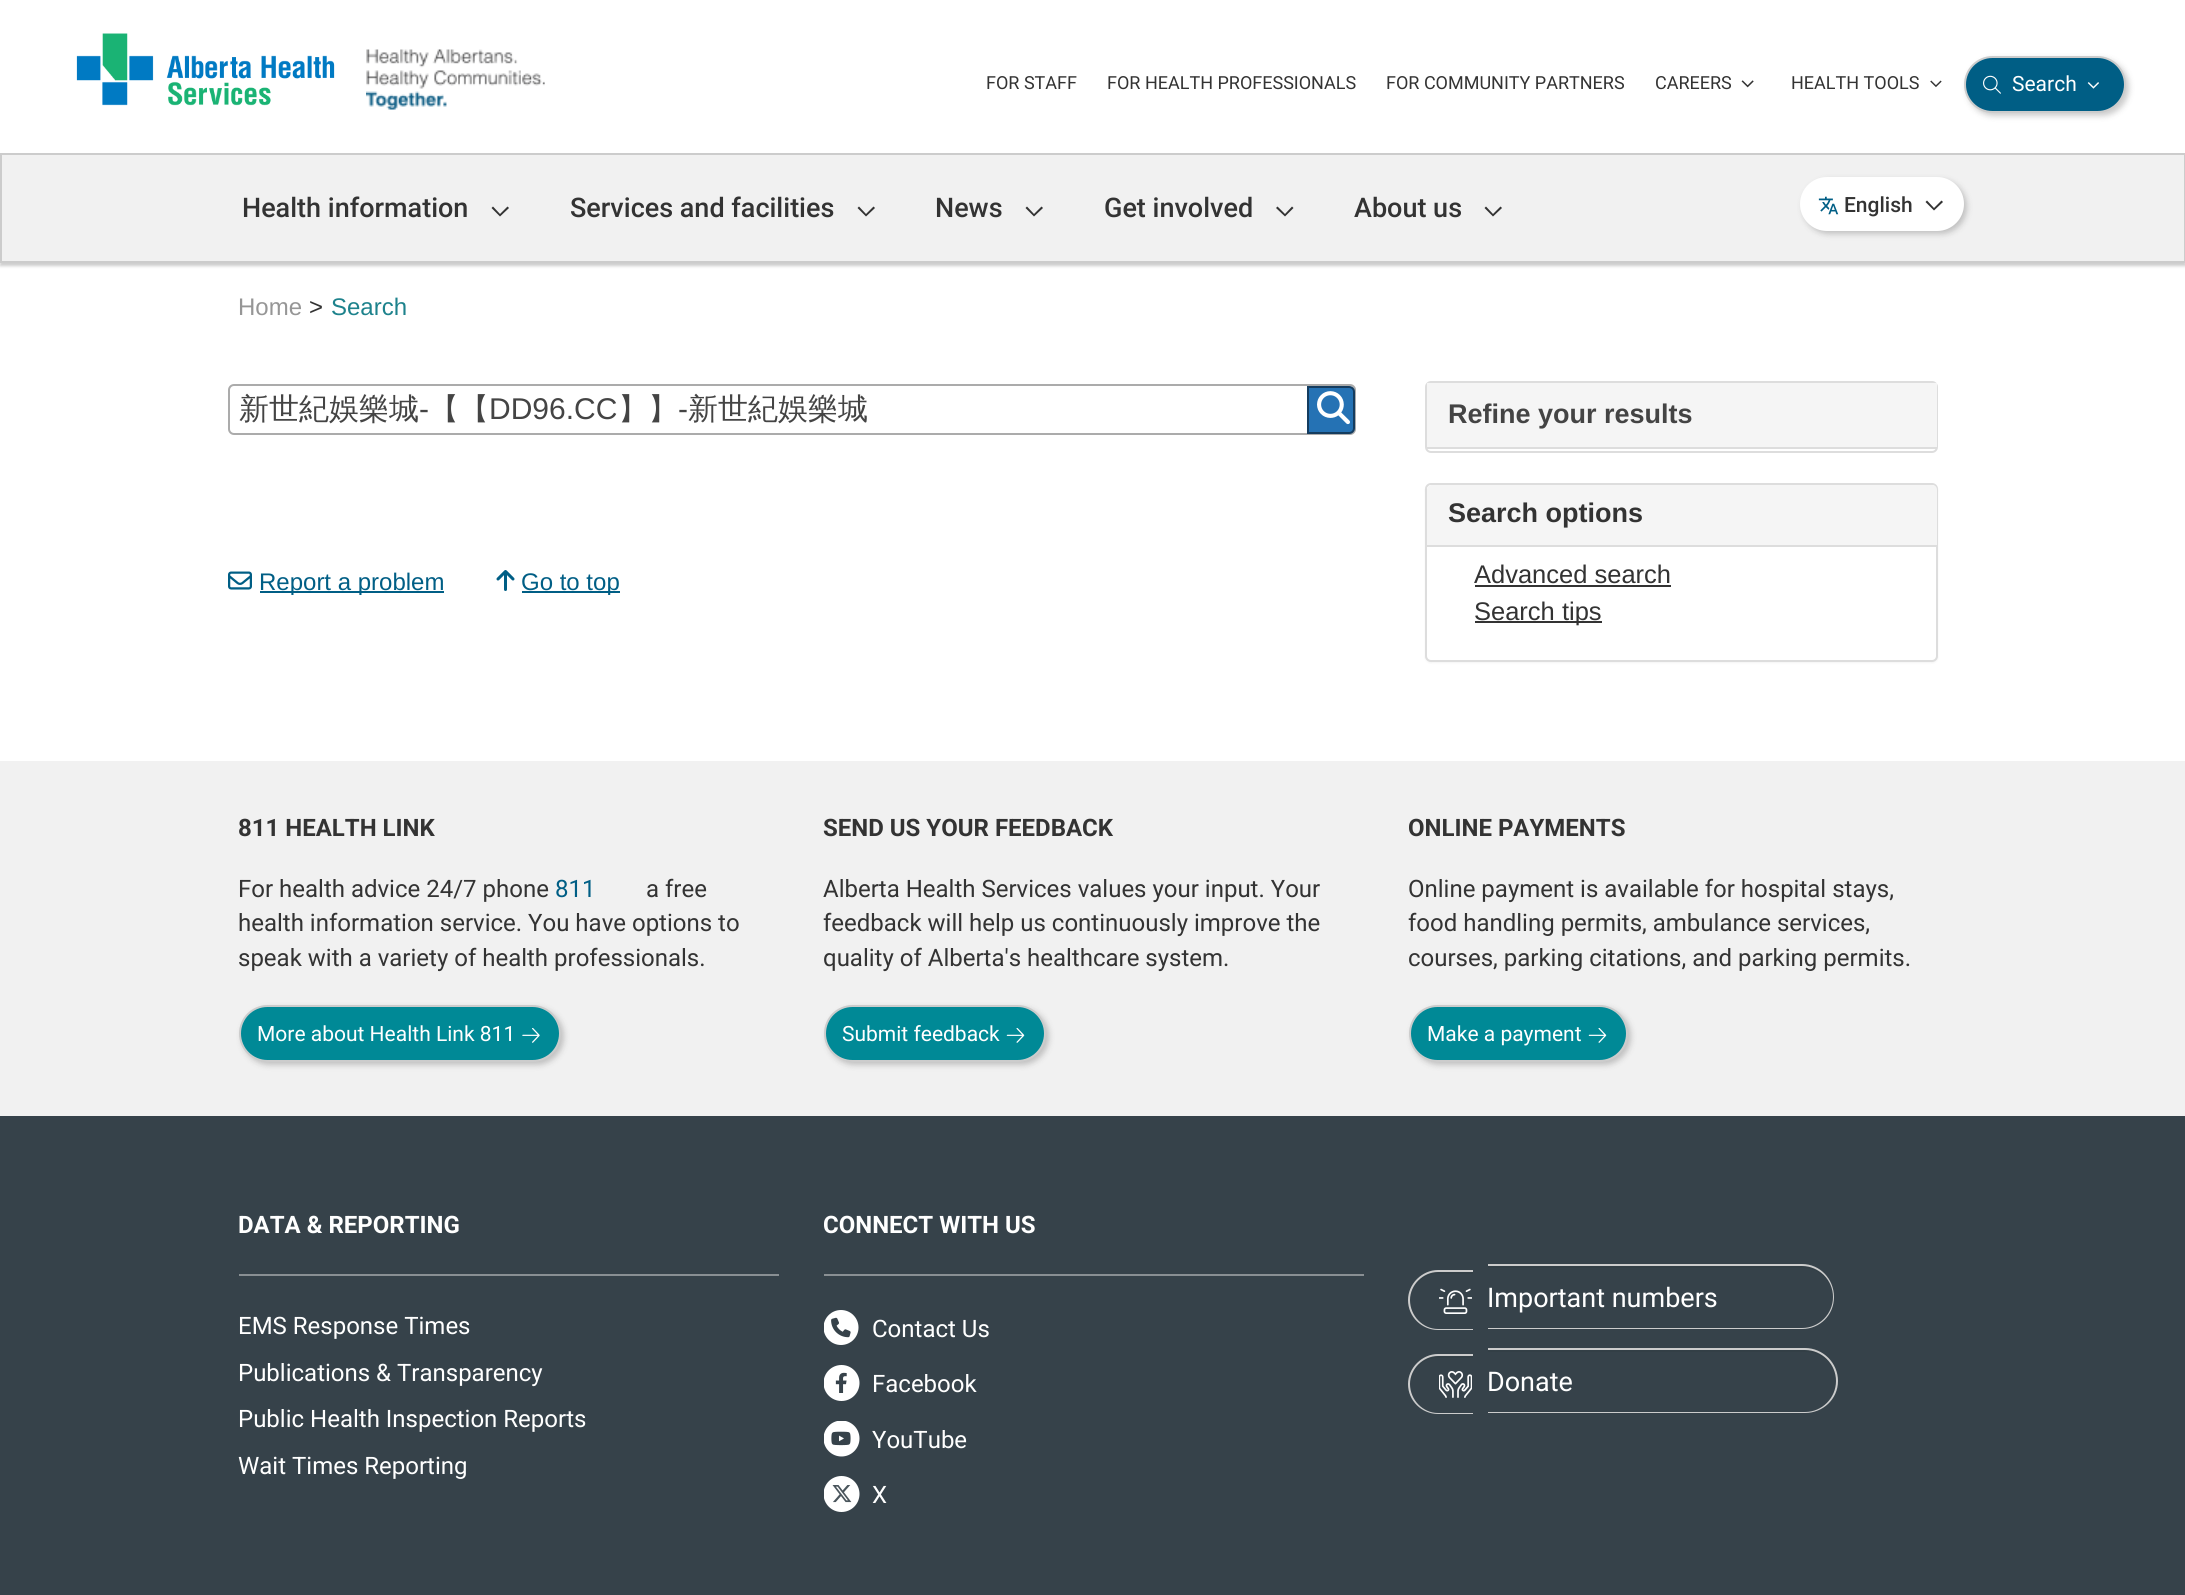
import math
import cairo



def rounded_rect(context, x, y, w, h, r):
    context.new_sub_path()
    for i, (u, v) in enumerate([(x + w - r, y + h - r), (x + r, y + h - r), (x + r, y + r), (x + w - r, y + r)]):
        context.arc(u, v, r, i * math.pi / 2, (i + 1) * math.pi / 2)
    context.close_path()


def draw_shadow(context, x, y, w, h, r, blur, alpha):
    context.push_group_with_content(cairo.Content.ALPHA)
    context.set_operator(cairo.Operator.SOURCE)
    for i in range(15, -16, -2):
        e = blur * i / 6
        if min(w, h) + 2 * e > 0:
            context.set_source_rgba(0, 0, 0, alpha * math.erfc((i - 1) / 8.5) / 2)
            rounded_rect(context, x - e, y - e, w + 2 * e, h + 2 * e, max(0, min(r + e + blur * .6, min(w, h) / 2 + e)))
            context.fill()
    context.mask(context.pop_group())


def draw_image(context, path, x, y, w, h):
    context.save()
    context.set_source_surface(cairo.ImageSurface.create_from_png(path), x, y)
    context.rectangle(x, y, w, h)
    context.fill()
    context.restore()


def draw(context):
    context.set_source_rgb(1, 1, 1)
    context.paint()
    draw_image(context, "images/1.png", 76, 33, 259, 73)
    draw_image(context, "images/2.png", 366, 49, 179, 61)
    draw_image(context, "images/3.png", 1741, 80, 13, 8)
    draw_image(context, "images/4.png", 1930, 80, 12, 8)
    context.set_source_rgb(0, 0, 0)
    draw_shadow(context, 1967, 59, 162, 57, 28.5, 3, 0.2)
    context.set_source_rgb(0, 94 / 255, 133 / 255)
    rounded_rect(context, 1965, 57, 160, 55, 27.5)
    context.fill_preserve()
    context.set_source_rgb(204 / 255, 204 / 255, 204 / 255)
    context.stroke()
    draw_image(context, "images/5.png", 1983, 75, 18, 19)
    draw_image(context, "images/6.png", 2087, 82, 12, 7)
    context.set_source_rgb(0, 0, 0)
    draw_shadow(context, 0, 156, 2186, 110, 0, 1.5, 0.2)
    context.set_source_rgb(241 / 255, 241 / 255, 241 / 255)
    context.rectangle(1, 154, 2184, 108)
    context.fill_preserve()
    context.set_source_rgb(204 / 255, 204 / 255, 204 / 255)
    context.stroke()
    context.set_source_rgb(51 / 255, 51 / 255, 51 / 255)
    context.new_path()
    context.move_to(500, 216.5)
    context.line_to(509, 208)
    context.line_to(507.5, 206.5)
    context.line_to(500, 214)
    context.line_to(493, 206.5)
    context.line_to(491.5, 208)
    context.close_path()
    context.fill()
    context.new_path()
    context.move_to(866, 216.5)
    context.line_to(875, 208)
    context.line_to(873.5, 206.5)
    context.line_to(866, 214)
    context.line_to(859, 206.5)
    context.line_to(857.5, 208)
    context.close_path()
    context.fill()
    context.new_path()
    context.move_to(1034, 216.5)
    context.line_to(1043, 208)
    context.line_to(1041.5, 206.5)
    context.line_to(1034, 214)
    context.line_to(1027, 206.5)
    context.line_to(1025.5, 208)
    context.close_path()
    context.fill()
    context.new_path()
    context.move_to(1285, 216.5)
    context.line_to(1293.5, 208)
    context.line_to(1292, 206.5)
    context.line_to(1285, 214)
    context.line_to(1277.5, 206.5)
    context.line_to(1276, 208)
    context.close_path()
    context.fill()
    context.new_path()
    context.move_to(1493, 216.5)
    context.line_to(1502, 208)
    context.line_to(1500.5, 206.5)
    context.line_to(1493, 214)
    context.line_to(1486, 206.5)
    context.line_to(1484.5, 208)
    context.close_path()
    context.fill()
    context.set_source_rgb(0, 0, 0)
    draw_shadow(context, 1803, 180, 164, 54, 27, 3, 0.2)
    context.set_source_rgb(1, 1, 1)
    rounded_rect(context, 1800, 177, 164, 54, 27)
    context.fill()
    draw_image(context, "images/7.png", 1818, 196, 21, 19)
    context.set_source_rgb(51 / 255, 51 / 255, 51 / 255)
    context.new_path()
    context.move_to(1934, 210.5)
    context.line_to(1943, 202)
    context.line_to(1941.5, 200.5)
    context.line_to(1934, 208)
    context.line_to(1927, 200.5)
    context.line_to(1925.5, 202)
    context.close_path()
    context.fill()
    rounded_rect(context, 229, 385, 1126, 49, 5)
    context.set_source_rgb(171 / 255, 171 / 255, 171 / 255)
    context.stroke()
    context.set_source_rgb(37 / 255, 114 / 255, 180 / 255)
    context.new_path()
    context.move_to(1308, 387)
    context.line_to(1349, 387)
    context.curve_to(1352, 387, 1354, 389, 1354, 392)
    context.line_to(1354, 428)
    context.curve_to(1354, 431, 1352, 433, 1349, 433)
    context.line_to(1308, 433)
    context.close_path()
    context.fill_preserve()
    context.set_source_rgb(20 / 255, 60 / 255, 95 / 255)
    context.stroke()
    draw_image(context, "images/8.png", 1317, 391, 33, 34)
    draw_image(context, "images/9.png", 228, 571, 24, 19)
    context.set_source_rgb(0, 94 / 255, 133 / 255)
    context.rectangle(260, 591, 184, 2)
    context.fill()
    draw_image(context, "images/10.png", 496, 570, 19, 21)
    context.rectangle(522, 591, 98, 2)
    context.fill()
    rounded_rect(context, 1426, 382, 511, 70, 5)
    context.set_source_rgb(221 / 255, 221 / 255, 221 / 255)
    context.stroke()
    context.set_source_rgb(245 / 255, 245 / 255, 245 / 255)
    context.rectangle(1427, 383, 510, 64)
    context.fill()
    context.set_source_rgb(221 / 255, 221 / 255, 221 / 255)
    context.rectangle(1427, 447, 510, 2)
    context.fill()
    context.set_source_rgb(0, 0, 0)
    draw_shadow(context, 1425, 485, 513, 178, 6, 1, 0.05)
    context.set_source_rgb(1, 1, 1)
    rounded_rect(context, 1426, 484, 511, 177, 5)
    context.fill_preserve()
    context.set_source_rgb(221 / 255, 221 / 255, 221 / 255)
    context.stroke()
    context.set_source_rgb(245 / 255, 245 / 255, 245 / 255)
    context.new_path()
    context.move_to(1432, 485)
    context.line_to(1932, 485)
    context.curve_to(1935, 485, 1937, 487, 1937, 490)
    context.line_to(1937, 546)
    context.line_to(1427, 546)
    context.line_to(1427, 490)
    context.curve_to(1427, 487, 1429, 485, 1432, 485)
    context.close_path()
    context.fill()
    context.set_source_rgb(221 / 255, 221 / 255, 221 / 255)
    context.rectangle(1427, 545, 510, 2)
    context.fill()
    context.set_source_rgb(51 / 255, 51 / 255, 51 / 255)
    context.rectangle(1475, 585, 196, 2)
    context.fill()
    context.rectangle(1475, 621, 127, 2)
    context.fill()
    context.set_source_rgb(241 / 255, 241 / 255, 241 / 255)
    context.rectangle(0, 761, 2185, 355)
    context.fill()
    context.set_source_rgb(0, 0, 0)
    draw_shadow(context, 242, 1008, 322, 57, 28.5, 3, 0.2)
    context.set_source_rgb(0, 137 / 255, 150 / 255)
    rounded_rect(context, 240, 1006, 320, 55, 27.5)
    context.fill_preserve()
    context.set_source_rgb(204 / 255, 204 / 255, 204 / 255)
    context.stroke()
    draw_image(context, "images/11.png", 522, 1028, 18, 15)
    context.set_source_rgb(0, 0, 0)
    draw_shadow(context, 827, 1008, 222, 57, 28.5, 3, 0.2)
    context.set_source_rgb(0, 137 / 255, 150 / 255)
    rounded_rect(context, 825, 1006, 220, 55, 27.5)
    context.fill_preserve()
    context.set_source_rgb(204 / 255, 204 / 255, 204 / 255)
    context.stroke()
    draw_image(context, "images/12.png", 1006, 1028, 19, 15)
    context.set_source_rgb(0, 0, 0)
    draw_shadow(context, 1412, 1008, 219, 57, 28.5, 3, 0.2)
    context.set_source_rgb(0, 137 / 255, 150 / 255)
    rounded_rect(context, 1410, 1006, 217, 55, 27.5)
    context.fill_preserve()
    context.set_source_rgb(204 / 255, 204 / 255, 204 / 255)
    context.stroke()
    draw_image(context, "images/12.png", 1588, 1028, 19, 15)
    context.set_source_rgb(54 / 255, 66 / 255, 74 / 255)
    context.rectangle(0, 1116, 2185, 479)
    context.fill()
    context.set_source_rgb(137 / 255, 143 / 255, 147 / 255)
    context.rectangle(239, 1274, 540, 2)
    context.fill()
    context.rectangle(824, 1274, 540, 2)
    context.fill()
    draw_image(context, "images/13.png", 824, 1310, 35, 35)
    draw_image(context, "images/14.png", 824, 1365, 36, 36)
    draw_image(context, "images/15.png", 824, 1421, 36, 36)
    draw_image(context, "images/16.png", 824, 1476, 36, 36)
    context.set_source_rgb(51 / 255, 63 / 255, 70 / 255)
    context.new_path()
    context.move_to(1438, 1274)
    context.line_to(1473, 1274)
    context.line_to(1473, 1272)
    context.line_to(1438, 1272)
    context.curve_to(1423, 1272, 1410, 1285, 1410, 1300)
    context.line_to(1410, 1301)
    context.curve_to(1410, 1286, 1423, 1274, 1438, 1274)
    context.close_path()
    context.fill()
    context.set_source_rgb(204 / 255, 204 / 255, 204 / 255)
    context.set_fill_rule(cairo.FillRule.EVEN_ODD)
    context.new_path()
    context.move_to(1438, 1270)
    context.line_to(1473, 1270)
    context.line_to(1473, 1330)
    context.line_to(1438, 1330)
    context.curve_to(1422, 1330, 1408, 1317, 1408, 1300)
    context.curve_to(1408, 1284, 1422, 1270, 1438, 1270)
    context.close_path()
    context.move_to(1438, 1272)
    context.line_to(1473, 1272)
    context.line_to(1473, 1329)
    context.line_to(1438, 1329)
    context.curve_to(1423, 1329, 1410, 1316, 1410, 1300)
    context.curve_to(1410, 1285, 1423, 1272, 1438, 1272)
    context.close_path()
    context.fill()
    draw_image(context, "images/17.png", 1439, 1288, 33, 26)
    context.set_source_rgb(51 / 255, 63 / 255, 70 / 255)
    context.set_fill_rule(cairo.FillRule.WINDING)
    context.new_path()
    context.move_to(1488, 1268)
    context.line_to(1802, 1268)
    context.curve_to(1819, 1268, 1833, 1281, 1833, 1298)
    context.line_to(1833, 1297)
    context.curve_to(1833, 1280, 1819, 1266, 1802, 1266)
    context.line_to(1488, 1266)
    context.close_path()
    context.fill()
    context.set_source_rgb(204 / 255, 204 / 255, 204 / 255)
    context.set_fill_rule(cairo.FillRule.EVEN_ODD)
    context.new_path()
    context.move_to(1488, 1264)
    context.line_to(1802, 1264)
    context.curve_to(1820, 1264, 1834, 1279, 1834, 1297)
    context.curve_to(1834, 1315, 1820, 1329, 1802, 1329)
    context.line_to(1488, 1329)
    context.close_path()
    context.move_to(1488, 1266)
    context.line_to(1802, 1266)
    context.curve_to(1819, 1266, 1833, 1280, 1833, 1297)
    context.curve_to(1833, 1314, 1819, 1328, 1802, 1328)
    context.line_to(1488, 1328)
    context.close_path()
    context.fill()
    context.set_source_rgb(51 / 255, 63 / 255, 70 / 255)
    context.set_fill_rule(cairo.FillRule.WINDING)
    context.new_path()
    context.move_to(1438, 1358)
    context.line_to(1473, 1358)
    context.line_to(1473, 1356)
    context.line_to(1438, 1356)
    context.curve_to(1423, 1356, 1410, 1369, 1410, 1384)
    context.line_to(1410, 1385)
    context.curve_to(1410, 1370, 1423, 1358, 1438, 1358)
    context.close_path()
    context.fill()
    context.set_source_rgb(204 / 255, 204 / 255, 204 / 255)
    context.set_fill_rule(cairo.FillRule.EVEN_ODD)
    context.new_path()
    context.move_to(1438, 1354)
    context.line_to(1473, 1354)
    context.line_to(1473, 1414)
    context.line_to(1438, 1414)
    context.curve_to(1422, 1414, 1408, 1401, 1408, 1384)
    context.curve_to(1408, 1368, 1422, 1354, 1438, 1354)
    context.close_path()
    context.move_to(1438, 1356)
    context.line_to(1473, 1356)
    context.line_to(1473, 1413)
    context.line_to(1438, 1413)
    context.curve_to(1423, 1413, 1410, 1400, 1410, 1384)
    context.curve_to(1410, 1369, 1423, 1356, 1438, 1356)
    context.close_path()
    context.fill()
    draw_image(context, "images/18.png", 1439, 1371, 33, 27)
    context.set_source_rgb(51 / 255, 63 / 255, 70 / 255)
    context.set_fill_rule(cairo.FillRule.WINDING)
    context.new_path()
    context.move_to(1488, 1352)
    context.line_to(1805, 1352)
    context.curve_to(1822, 1352, 1836, 1365, 1836, 1382)
    context.line_to(1836, 1381)
    context.curve_to(1836, 1364, 1822, 1350, 1805, 1350)
    context.line_to(1488, 1350)
    context.close_path()
    context.fill()
    context.set_source_rgb(204 / 255, 204 / 255, 204 / 255)
    context.set_fill_rule(cairo.FillRule.EVEN_ODD)
    context.new_path()
    context.move_to(1488, 1348)
    context.line_to(1805, 1348)
    context.curve_to(1823, 1348, 1838, 1363, 1838, 1381)
    context.curve_to(1838, 1399, 1823, 1413, 1805, 1413)
    context.line_to(1488, 1413)
    context.close_path()
    context.move_to(1488, 1350)
    context.line_to(1805, 1350)
    context.curve_to(1822, 1350, 1836, 1364, 1836, 1381)
    context.curve_to(1836, 1398, 1822, 1412, 1805, 1412)
    context.line_to(1488, 1412)
    context.close_path()
    context.fill()
    context.select_font_face("Roboto")
    context.set_font_size(18)
    context.set_source_rgb(51 / 255, 51 / 255, 51 / 255)
    context.move_to(986, 89)
    context.show_text("FOR STAFF")
    context.move_to(1107, 89)
    context.show_text("FOR HEALTH PROFESSIONALS")
    context.move_to(1386, 89)
    context.show_text("FOR COMMUNITY PARTNERS")
    context.move_to(1655, 89)
    context.show_text("CAREERS")
    context.move_to(1791, 89)
    context.show_text("HEALTH TOOLS")
    context.set_font_size(21)
    context.set_source_rgb(1, 1, 1)
    context.move_to(2012, 91)
    context.show_text("Search")
    context.select_font_face("Roboto Medium")
    context.set_font_size(27)
    context.set_source_rgb(51 / 255, 51 / 255, 51 / 255)
    context.move_to(242, 217)
    context.show_text("Health information")
    context.move_to(570, 217)
    context.show_text("Services and facilities")
    context.move_to(935, 217)
    context.show_text("News")
    context.move_to(1104, 217)
    context.show_text("Get involved")
    context.move_to(1354, 217)
    context.show_text("About us")
    context.set_font_size(21)
    context.move_to(1844, 212)
    context.show_text("English")
    context.select_font_face("Liberation Sans")
    context.set_font_size(24)
    context.set_source_rgb(150 / 255, 150 / 255, 150 / 255)
    context.move_to(238, 315)
    context.show_text("Home")
    context.set_source_rgb(51 / 255, 51 / 255, 51 / 255)
    context.move_to(309, 315)
    context.show_text(">")
    context.set_source_rgb(29 / 255, 130 / 255, 140 / 255)
    context.move_to(331, 315)
    context.show_text("Search")
    context.select_font_face("WenQuanYi Zen Hei Medium")
    context.set_font_size(30)
    context.set_source_rgb(68 / 255, 68 / 255, 68 / 255)
    context.move_to(239, 419)
    context.show_text("新世紀娛樂城")
    context.select_font_face("Liberation Sans")
    context.move_to(419, 419)
    context.show_text("-")
    context.select_font_face("WenQuanYi Zen Hei Medium")
    context.move_to(429, 419)
    context.show_text("【【")
    context.select_font_face("Liberation Sans")
    context.move_to(489, 419)
    context.show_text("DD96.CC")
    context.select_font_face("WenQuanYi Zen Hei Medium")
    context.move_to(618, 419)
    context.show_text("】】")
    context.select_font_face("Liberation Sans")
    context.move_to(678, 419)
    context.show_text("-")
    context.select_font_face("WenQuanYi Zen Hei Medium")
    context.move_to(688, 419)
    context.show_text("新世紀娛樂城")
    context.select_font_face("Liberation Sans")
    context.set_font_size(24)
    context.set_source_rgb(0, 94 / 255, 133 / 255)
    context.move_to(259, 590)
    context.show_text("Report a problem")
    context.move_to(521, 590)
    context.show_text("Go to top")
    context.select_font_face("Liberation Sans", cairo.FontSlant.NORMAL, cairo.FontWeight.BOLD)
    context.set_font_size(27)
    context.set_source_rgb(68 / 255, 68 / 255, 68 / 255)
    context.move_to(1448, 423)
    context.show_text("Refine your results")
    context.set_source_rgb(51 / 255, 51 / 255, 51 / 255)
    context.move_to(1448, 522)
    context.show_text("Search options")
    context.select_font_face("Liberation Sans")
    context.set_font_size(25.5)
    context.move_to(1474, 583)
    context.show_text("Advanced search")
    context.move_to(1474, 620)
    context.show_text("Search tips")
    context.select_font_face("Roboto", cairo.FontSlant.NORMAL, cairo.FontWeight.BOLD)
    context.set_font_size(24)
    context.move_to(238, 836)
    context.show_text("811 HEALTH LINK")
    context.select_font_face("Roboto")
    context.move_to(238, 897)
    context.show_text("For health advice 24/7 phone")
    context.set_source_rgb(0, 94 / 255, 133 / 255)
    context.move_to(555, 897)
    context.show_text("811")
    context.set_source_rgb(51 / 255, 51 / 255, 51 / 255)
    context.move_to(646, 897)
    context.show_text("a free")
    context.move_to(238, 931)
    context.show_text("health information service. You have options to")
    context.move_to(238, 966)
    context.show_text("speak with a variety of health professionals.")
    context.set_font_size(21)
    context.set_source_rgb(1, 1, 1)
    context.move_to(257, 1041)
    context.show_text("More about Health Link 811")
    context.select_font_face("Roboto", cairo.FontSlant.NORMAL, cairo.FontWeight.BOLD)
    context.set_font_size(24)
    context.set_source_rgb(51 / 255, 51 / 255, 51 / 255)
    context.move_to(823, 836)
    context.show_text("SEND US YOUR FEEDBACK")
    context.select_font_face("Roboto")
    context.move_to(823, 897)
    context.show_text("Alberta Health Services values your input. Your")
    context.move_to(823, 931)
    context.show_text("feedback will help us continuously improve the")
    context.move_to(823, 966)
    context.show_text("quality of Alberta's healthcare system.")
    context.set_font_size(21)
    context.set_source_rgb(1, 1, 1)
    context.move_to(842, 1041)
    context.show_text("Submit feedback")
    context.select_font_face("Roboto", cairo.FontSlant.NORMAL, cairo.FontWeight.BOLD)
    context.set_font_size(24)
    context.set_source_rgb(51 / 255, 51 / 255, 51 / 255)
    context.move_to(1408, 836)
    context.show_text("ONLINE PAYMENTS")
    context.select_font_face("Roboto")
    context.move_to(1408, 897)
    context.show_text("Online payment is available for hospital stays,")
    context.move_to(1408, 931)
    context.show_text("food handling permits, ambulance services,")
    context.move_to(1408, 966)
    context.show_text("courses, parking citations, and parking permits.")
    context.set_font_size(21)
    context.set_source_rgb(1, 1, 1)
    context.move_to(1427, 1041)
    context.show_text("Make a payment")
    context.select_font_face("Roboto", cairo.FontSlant.NORMAL, cairo.FontWeight.BOLD)
    context.set_font_size(24)
    context.move_to(238, 1233)
    context.show_text("DATA & REPORTING")
    context.select_font_face("Roboto")
    context.move_to(238, 1334)
    context.show_text("EMS Response Times")
    context.move_to(238, 1381)
    context.show_text("Publications & Transparency")
    context.move_to(238, 1427)
    context.show_text("Public Health Inspection Reports")
    context.move_to(238, 1474)
    context.show_text("Wait Times Reporting")
    context.select_font_face("Roboto", cairo.FontSlant.NORMAL, cairo.FontWeight.BOLD)
    context.move_to(823, 1233)
    context.show_text("CONNECT WITH US")
    context.select_font_face("Roboto")
    context.move_to(872, 1337)
    context.show_text("Contact Us")
    context.move_to(872, 1392)
    context.show_text("Facebook")
    context.move_to(872, 1448)
    context.show_text("YouTube")
    context.move_to(872, 1503)
    context.show_text("X")
    context.set_font_size(27)
    context.move_to(1487, 1307)
    context.show_text("Important numbers")
    context.move_to(1487, 1391)
    context.show_text("Donate")


surface = cairo.ImageSurface(cairo.Format.RGB24, 2185, 1595)
context = cairo.Context(surface)
options = cairo.FontOptions()
options.set_hint_metrics(cairo.HintMetrics.OFF)
options.set_hint_style(cairo.HintStyle.NONE)
context.set_font_options(options)
context.set_miter_limit(4)
draw(context)
surface.write_to_png("out.png")
